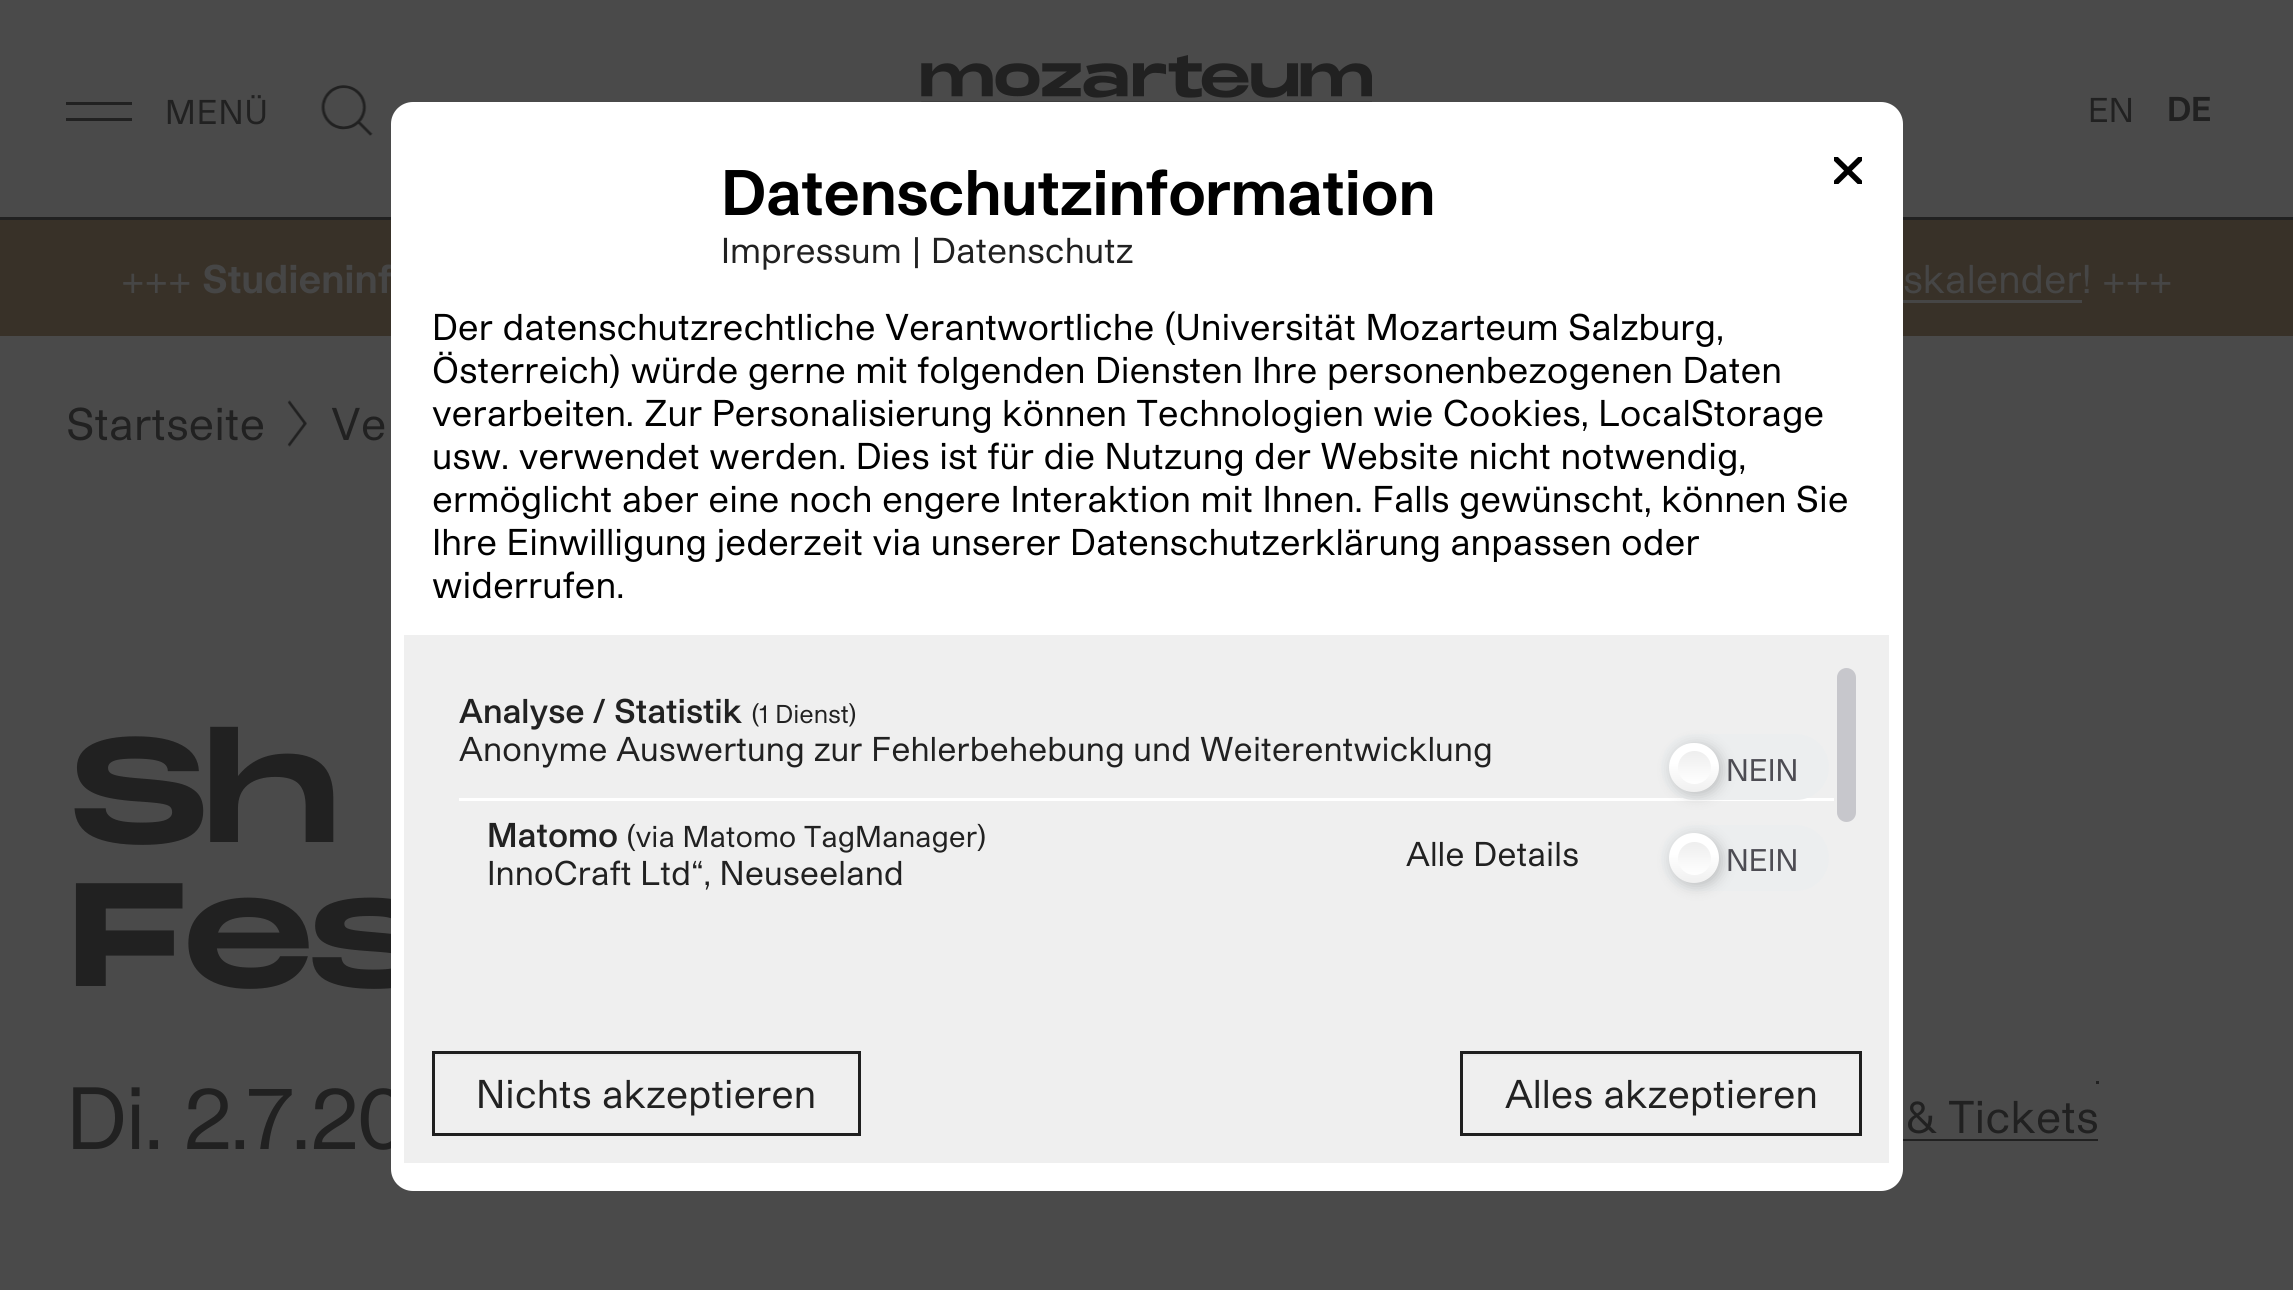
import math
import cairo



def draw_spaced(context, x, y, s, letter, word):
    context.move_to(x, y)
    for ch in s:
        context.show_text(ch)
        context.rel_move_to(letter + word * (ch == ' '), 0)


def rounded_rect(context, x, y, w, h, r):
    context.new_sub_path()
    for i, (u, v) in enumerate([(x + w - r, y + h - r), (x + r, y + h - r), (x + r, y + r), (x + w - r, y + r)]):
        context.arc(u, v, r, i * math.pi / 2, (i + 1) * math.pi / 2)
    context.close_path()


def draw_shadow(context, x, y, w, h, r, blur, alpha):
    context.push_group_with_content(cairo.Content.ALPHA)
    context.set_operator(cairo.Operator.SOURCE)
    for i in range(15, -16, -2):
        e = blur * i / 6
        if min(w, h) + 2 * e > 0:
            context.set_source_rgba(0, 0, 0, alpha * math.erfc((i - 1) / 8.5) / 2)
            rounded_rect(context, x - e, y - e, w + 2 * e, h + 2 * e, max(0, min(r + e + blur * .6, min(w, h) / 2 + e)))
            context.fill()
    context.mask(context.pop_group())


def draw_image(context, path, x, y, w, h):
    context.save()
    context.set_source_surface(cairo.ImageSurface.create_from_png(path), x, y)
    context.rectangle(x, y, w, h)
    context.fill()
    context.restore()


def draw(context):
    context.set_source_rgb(74 / 255, 74 / 255, 74 / 255)
    context.paint()
    context.set_source_rgb(33 / 255, 33 / 255, 33 / 255)
    context.rectangle(0, 217, 2293, 3)
    context.fill()
    draw_image(context, "images/1.png", 921, 55, 451, 47)
    context.rectangle(66, 102, 66, 3)
    context.fill()
    context.rectangle(66, 118, 66, 3)
    context.fill()
    draw_image(context, "images/2.png", 321, 85, 52, 51)
    context.set_source_rgb(56 / 255, 49 / 255, 40 / 255)
    context.rectangle(0, 220, 2293, 116)
    context.fill()
    context.set_source_rgb(70 / 255, 70 / 255, 70 / 255)
    context.rectangle(1903, 300, 179, 3)
    context.fill()
    draw_image(context, "images/3.png", 287, 400, 20, 47)
    context.set_source_rgb(33 / 255, 33 / 255, 33 / 255)
    context.rectangle(1903, 1139, 195, 2)
    context.fill()
    context.rectangle(2096, 1081, 3, 3)
    context.fill()
    context.select_font_face("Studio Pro")
    context.set_font_size(33)
    draw_spaced(context, 165, 124, "MENÜ", 1, 0)
    context.move_to(2088, 122)
    context.show_text("EN")
    context.select_font_face("Studio Pro", cairo.FontSlant.NORMAL, cairo.FontWeight.BOLD)
    context.move_to(2167, 121)
    context.show_text("DE")
    context.select_font_face("Studio Pro")
    context.set_font_size(38.5)
    context.set_source_rgb(70 / 255, 70 / 255, 70 / 255)
    context.move_to(121, 293)
    context.show_text("+++")
    context.select_font_face("Studio Pro", cairo.FontSlant.NORMAL, cairo.FontWeight.BOLD)
    context.move_to(202, 293)
    context.show_text("Studieninf")
    context.select_font_face("Studio Pro")
    context.move_to(1903, 293)
    context.show_text("skalender! +++")
    context.set_font_size(44)
    context.set_source_rgb(33 / 255, 33 / 255, 33 / 255)
    context.move_to(66, 440)
    context.show_text("Startseite")
    context.move_to(331, 440)
    context.show_text("Ve")
    context.select_font_face("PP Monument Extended", cairo.FontSlant.NORMAL, cairo.FontWeight.BOLD)
    context.set_font_size(144)
    draw_spaced(context, 66, 842, "Sh", -11.5, 0)
    draw_spaced(context, 66, 986, "Fes", -11.5, 0)
    context.select_font_face("Studio Pro")
    context.set_font_size(84.5)
    draw_spaced(context, 66, 1149, "Di. 2.7.20", -1.75, 0)
    context.set_font_size(44)
    context.move_to(1906, 1133)
    context.show_text("& Tickets")
    context.set_source_rgb(1, 1, 1)
    rounded_rect(context, 391, 102, 1512, 1089, 22)
    context.fill()
    context.select_font_face("Studio Pro", cairo.FontSlant.NORMAL, cairo.FontWeight.BOLD)
    context.set_font_size(61.6)
    context.set_source_rgb(0, 0, 0)
    context.move_to(721, 215)
    context.show_text("Datenschutzinformation")
    context.save()
    context.rectangle(1834, 157, 28, 27)
    context.clip()
    context.new_path()
    context.move_to(1834, 157)
    context.line_to(1862, 184.5)
    context.move_to(1834, 184.5)
    context.line_to(1862, 157)
    context.set_line_width(5.5)
    context.stroke()
    context.restore()
    context.select_font_face("Studio Pro")
    context.set_font_size(34.5)
    context.set_source_rgb(33 / 255, 33 / 255, 33 / 255)
    context.move_to(721, 263)
    context.show_text("Impressum")
    context.move_to(912, 263)
    context.show_text("|")
    context.move_to(931, 263)
    context.show_text("Datenschutz")
    context.set_font_size(35.75)
    context.set_source_rgb(0, 0, 0)
    context.move_to(432, 340)
    context.show_text("Der datenschutzrechtliche Verantwortliche (Universität Mozarteum Salzburg,")
    context.move_to(432, 383)
    context.show_text("Österreich) würde gerne mit folgenden Diensten Ihre personenbezogenen Daten")
    context.move_to(432, 426)
    context.show_text("verarbeiten. Zur Personalisierung können Technologien wie Cookies, LocalStorage")
    context.move_to(432, 469)
    context.show_text("usw. verwendet werden. Dies ist für die Nutzung der Website nicht notwendig,")
    context.move_to(432, 512)
    context.show_text("ermöglicht aber eine noch engere Interaktion mit Ihnen. Falls gewünscht, können Sie")
    context.move_to(432, 555)
    context.show_text("Ihre Einwilligung jederzeit via unserer Datenschutzerklärung anpassen oder")
    context.move_to(432, 598)
    context.show_text("widerrufen.")
    context.set_source_rgb(239 / 255, 239 / 255, 239 / 255)
    context.rectangle(404, 635, 1485, 528)
    context.fill()
    context.select_font_face("Studio Pro SemiBold")
    context.set_font_size(33)
    context.set_source_rgb(33 / 255, 33 / 255, 33 / 255)
    context.move_to(459, 723)
    context.show_text("Analyse / Statistik")
    context.select_font_face("Studio Pro")
    context.set_font_size(24.75)
    context.move_to(751, 723)
    context.show_text("(1 Dienst)")
    context.set_font_size(33)
    context.move_to(459, 761)
    context.show_text("Anonyme Auswertung zur Fehlerbehebung und Weiterentwicklung")
    context.set_source_rgb(1, 1, 1)
    context.rectangle(459, 798, 1375, 3)
    context.fill()
    context.set_source_rgb(236 / 255, 238 / 255, 239 / 255)
    rounded_rect(context, 1661, 734, 168, 66, 33)
    context.fill()
    context.set_source_rgb(0, 0, 0)
    draw_shadow(context, 1672, 745, 50, 50, 25, 7, 0.2)
    gradient = cairo.LinearGradient(1694, 743, 1694, 792)
    gradient.add_color_stop_rgba(0.4, 1, 1, 1, 1)
    gradient.add_color_stop_rgba(1, 240 / 255, 240 / 255, 240 / 255, 1)
    context.set_source(gradient)
    rounded_rect(context, 1669, 743, 50, 49, 24.5)
    context.fill()
    gradient = cairo.LinearGradient(1694, 751, 1694, 784)
    gradient.add_color_stop_rgba(0, 238 / 255, 238 / 255, 238 / 255, 1)
    gradient.add_color_stop_rgba(1, 1, 1, 1, 1)
    context.set_source(gradient)
    context.arc(1694.5, 767.5, 16.5, 0, 2 * math.pi)
    context.fill()
    context.set_font_size(30)
    context.set_source_rgb(77 / 255, 76 / 255, 83 / 255)
    context.move_to(1726, 781)
    context.show_text("NEIN")
    context.select_font_face("Studio Pro SemiBold")
    context.set_font_size(33)
    context.set_source_rgb(33 / 255, 33 / 255, 33 / 255)
    context.move_to(487, 847)
    context.show_text("Matomo")
    context.select_font_face("Studio Pro")
    context.set_font_size(28.9)
    context.move_to(626, 847)
    context.show_text("(via Matomo TagManager)")
    context.set_font_size(33)
    context.move_to(487, 885)
    context.show_text("InnoCraft Ltd“, Neuseeland")
    context.move_to(1406, 866)
    context.show_text("Alle Details")
    context.set_source_rgb(236 / 255, 238 / 255, 239 / 255)
    rounded_rect(context, 1661, 825, 168, 66, 33)
    context.fill()
    context.set_source_rgb(0, 0, 0)
    draw_shadow(context, 1672, 836, 50, 50, 25, 7, 0.2)
    gradient = cairo.LinearGradient(1694, 834, 1694, 883)
    gradient.add_color_stop_rgba(0.4, 1, 1, 1, 1)
    gradient.add_color_stop_rgba(1, 240 / 255, 240 / 255, 240 / 255, 1)
    context.set_source(gradient)
    context.arc(1694, 858, 25, 0, 2 * math.pi)
    context.fill()
    gradient = cairo.LinearGradient(1694, 842, 1694, 875)
    gradient.add_color_stop_rgba(0, 238 / 255, 238 / 255, 238 / 255, 1)
    gradient.add_color_stop_rgba(1, 1, 1, 1, 1)
    context.set_source(gradient)
    context.arc(1694.5, 858.5, 16.5, 0, 2 * math.pi)
    context.fill()
    context.set_font_size(30)
    context.set_source_rgb(77 / 255, 76 / 255, 83 / 255)
    context.move_to(1726, 871)
    context.show_text("NEIN")
    context.set_source_rgb(199 / 255, 199 / 255, 204 / 255)
    rounded_rect(context, 1837, 668, 19, 154, 9.5)
    context.fill()
    context.set_source_rgb(234 / 255, 234 / 255, 234 / 255)
    context.rectangle(435, 1054, 423, 2)
    context.fill()
    context.rectangle(433.5, 1052.5, 426, 82)
    context.set_source_rgb(31 / 255, 31 / 255, 31 / 255)
    context.set_line_width(3)
    context.stroke()
    context.set_font_size(38.5)
    context.set_source_rgb(33 / 255, 33 / 255, 33 / 255)
    context.move_to(476, 1108)
    context.show_text("Nichts akzeptieren")
    context.set_source_rgb(234 / 255, 234 / 255, 234 / 255)
    context.rectangle(1463, 1054, 396, 2)
    context.fill()
    context.rectangle(1461.5, 1052.5, 399, 82)
    context.set_source_rgb(31 / 255, 31 / 255, 31 / 255)
    context.stroke()
    context.set_source_rgb(33 / 255, 33 / 255, 33 / 255)
    context.move_to(1505, 1108)
    context.show_text("Alles akzeptieren")


surface = cairo.ImageSurface(cairo.Format.RGB24, 2293, 1290)
context = cairo.Context(surface)
options = cairo.FontOptions()
options.set_hint_metrics(cairo.HintMetrics.OFF)
options.set_hint_style(cairo.HintStyle.NONE)
context.set_font_options(options)
context.set_miter_limit(4)
draw(context)
surface.write_to_png("out.png")
